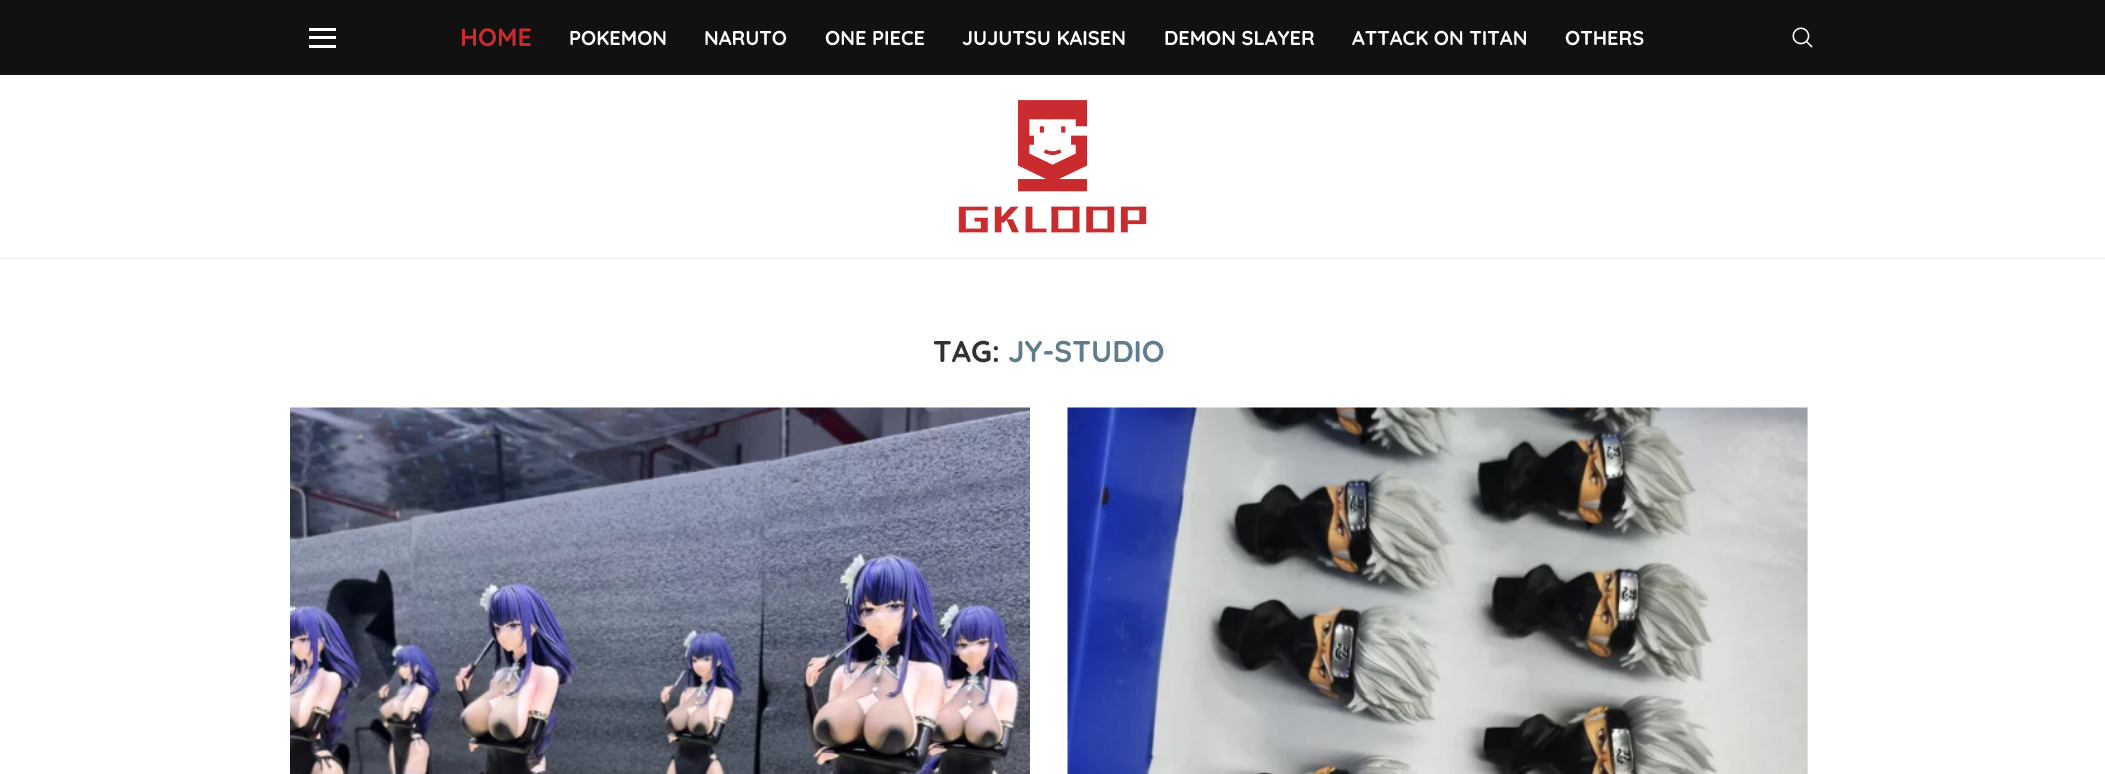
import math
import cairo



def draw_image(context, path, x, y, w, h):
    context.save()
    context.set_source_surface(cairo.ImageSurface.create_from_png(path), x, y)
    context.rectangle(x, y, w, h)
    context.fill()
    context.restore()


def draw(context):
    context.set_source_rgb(1, 1, 1)
    context.paint()
    context.set_source_rgb(17 / 255, 17 / 255, 17 / 255)
    context.rectangle(0, 0, 2105, 75)
    context.fill()
    context.set_source_rgb(1, 1, 1)
    context.rectangle(309, 28, 27, 3)
    context.fill()
    context.rectangle(309, 45, 27, 3)
    context.fill()
    context.rectangle(309, 36, 27, 3)
    context.fill()
    draw_image(context, "images/1.png", 1792, 27, 21, 21)
    context.set_source_rgb(236 / 255, 236 / 255, 236 / 255)
    context.rectangle(0, 258, 2105, 1)
    context.fill()
    draw_image(context, "images/2.png", 958, 100, 189, 133)
    draw_image(context, "images/3.png", 290, 407, 740, 367)
    context.set_source_rgb(245 / 255, 245 / 255, 245 / 255)
    context.rectangle(1807, 408, 1, 366)
    context.fill()
    draw_image(context, "images/4.png", 1067, 407, 741, 367)
    context.select_font_face("Quicksand", cairo.FontSlant.NORMAL, cairo.FontWeight.BOLD)
    context.set_font_size(25)
    context.set_source_rgb(201 / 255, 43 / 255, 47 / 255)
    context.move_to(460, 46)
    context.show_text("HOME")
    context.set_font_size(20)
    context.set_source_rgb(1, 1, 1)
    context.move_to(569, 45)
    context.show_text("POKEMON")
    context.move_to(704, 45)
    context.show_text("NARUTO")
    context.move_to(825, 45)
    context.show_text("ONE PIECE")
    context.move_to(962, 45)
    context.show_text("JUJUTSU KAISEN")
    context.move_to(1164, 45)
    context.show_text("DEMON SLAYER")
    context.move_to(1352, 45)
    context.show_text("ATTACK ON TITAN")
    context.move_to(1565, 45)
    context.show_text("OTHERS")
    context.set_font_size(30)
    context.set_source_rgb(49 / 255, 49 / 255, 49 / 255)
    context.move_to(933, 362)
    context.show_text("TAG:")
    context.set_source_rgb(96 / 255, 125 / 255, 139 / 255)
    context.move_to(1008, 362)
    context.show_text("JY-STUDIO")


surface = cairo.ImageSurface(cairo.Format.RGB24, 2105, 774)
context = cairo.Context(surface)
options = cairo.FontOptions()
options.set_hint_metrics(cairo.HintMetrics.OFF)
options.set_hint_style(cairo.HintStyle.NONE)
context.set_font_options(options)
context.set_miter_limit(4)
draw(context)
surface.write_to_png("out.png")
